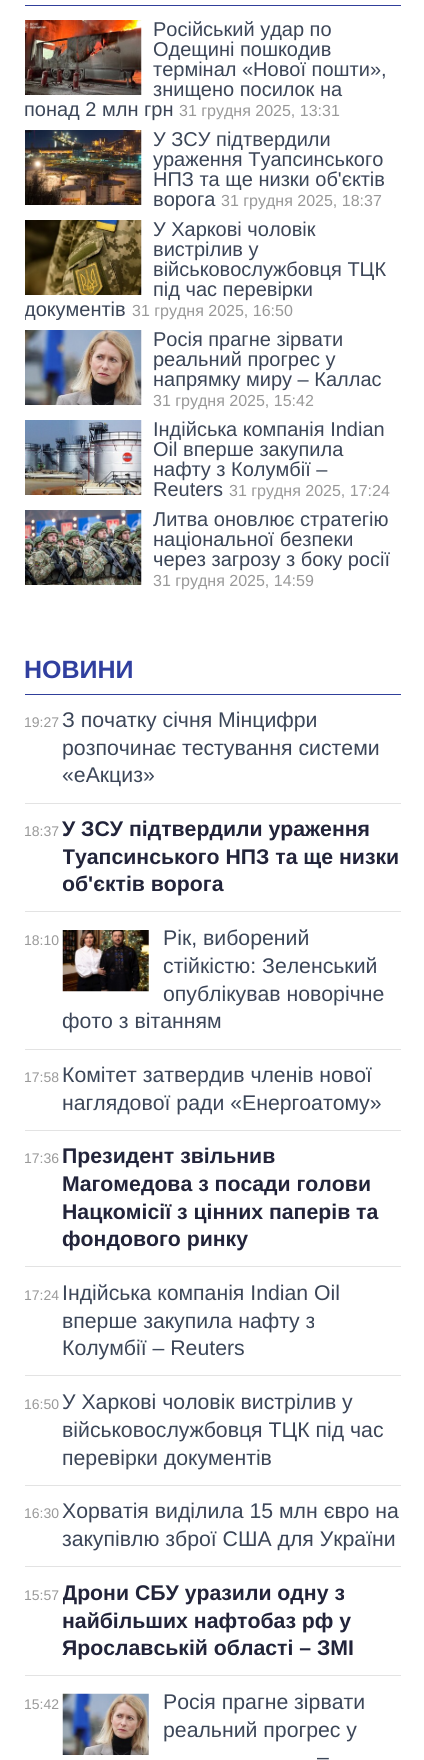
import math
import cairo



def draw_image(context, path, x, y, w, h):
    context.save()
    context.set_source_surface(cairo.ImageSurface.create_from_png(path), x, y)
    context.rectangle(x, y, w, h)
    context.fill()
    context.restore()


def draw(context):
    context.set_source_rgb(1, 1, 1)
    context.paint()
    context.set_source_rgb(48 / 255, 63 / 255, 155 / 255)
    context.rectangle(25, 5, 376, 1)
    context.fill()
    draw_image(context, "images/1.png", 25, 20, 117, 75)
    draw_image(context, "images/2.png", 25, 130, 117, 75)
    draw_image(context, "images/3.png", 25, 220, 117, 75)
    draw_image(context, "images/4.png", 25, 330, 117, 75)
    draw_image(context, "images/5.png", 25, 420, 117, 75)
    draw_image(context, "images/6.png", 25, 510, 117, 75)
    context.rectangle(25, 694, 376, 1)
    context.fill()
    context.set_source_rgb(227 / 255, 227 / 255, 227 / 255)
    context.rectangle(25, 803, 376, 1)
    context.fill()
    context.rectangle(25, 911, 376, 1)
    context.fill()
    draw_image(context, "images/7.png", 62, 930, 87, 62)
    context.rectangle(25, 1049, 376, 1)
    context.fill()
    context.rectangle(25, 1130, 376, 1)
    context.fill()
    context.rectangle(25, 1266, 376, 1)
    context.fill()
    context.rectangle(25, 1375, 376, 1)
    context.fill()
    context.rectangle(25, 1485, 376, 1)
    context.fill()
    context.rectangle(25, 1566, 376, 1)
    context.fill()
    context.rectangle(25, 1675, 376, 1)
    context.fill()
    draw_image(context, "images/8.png", 62, 1693, 87, 62)
    context.select_font_face("Liberation Sans")
    context.set_font_size(20)
    context.set_source_rgb(60 / 255, 70 / 255, 88 / 255)
    context.move_to(153, 36)
    context.show_text("Російський удар по")
    context.move_to(153, 56)
    context.show_text("Одещині пошкодив")
    context.move_to(153, 76)
    context.show_text("термінал «Нової пошти»,")
    context.move_to(153, 96)
    context.show_text("знищено посилок на")
    context.move_to(24, 116)
    context.show_text("понад 2 млн грн")
    context.set_font_size(16)
    context.set_source_rgb(153 / 255, 153 / 255, 153 / 255)
    context.move_to(179, 116)
    context.show_text("31 грудня 2025, 13:31")
    context.set_font_size(20)
    context.set_source_rgb(60 / 255, 70 / 255, 88 / 255)
    context.move_to(153, 146)
    context.show_text("У ЗСУ підтвердили")
    context.move_to(153, 166)
    context.show_text("ураження Туапсинського")
    context.move_to(153, 186)
    context.show_text("НПЗ та ще низки об'єктів")
    context.move_to(153, 206)
    context.show_text("ворога")
    context.set_font_size(16)
    context.set_source_rgb(153 / 255, 153 / 255, 153 / 255)
    context.move_to(221, 206)
    context.show_text("31 грудня 2025, 18:37")
    context.set_font_size(20)
    context.set_source_rgb(60 / 255, 70 / 255, 88 / 255)
    context.move_to(153, 236)
    context.show_text("У Харкові чоловік")
    context.move_to(153, 256)
    context.show_text("вистрілив у")
    context.move_to(153, 276)
    context.show_text("військовослужбовця ТЦК")
    context.move_to(153, 296)
    context.show_text("під час перевірки")
    context.save()
    context.rectangle(25, 220, 376, 100)
    context.clip()
    context.move_to(24, 316)
    context.show_text("документів")
    context.restore()
    context.set_font_size(16)
    context.set_source_rgb(153 / 255, 153 / 255, 153 / 255)
    context.move_to(132, 316)
    context.show_text("31 грудня 2025, 16:50")
    context.set_font_size(20)
    context.set_source_rgb(60 / 255, 70 / 255, 88 / 255)
    context.move_to(153, 346)
    context.show_text("Росія прагне зірвати")
    context.move_to(153, 366)
    context.show_text("реальний прогрес у")
    context.move_to(153, 386)
    context.show_text("напрямку миру – Каллас")
    context.set_font_size(16)
    context.set_source_rgb(153 / 255, 153 / 255, 153 / 255)
    context.move_to(153, 406)
    context.show_text("31 грудня 2025, 15:42")
    context.set_font_size(20)
    context.set_source_rgb(60 / 255, 70 / 255, 88 / 255)
    context.move_to(153, 436)
    context.show_text("Індійська компанія Indian")
    context.move_to(153, 456)
    context.show_text("Oil вперше закупила")
    context.move_to(153, 476)
    context.show_text("нафту з Колумбії –")
    context.move_to(153, 496)
    context.show_text("Reuters")
    context.set_font_size(16)
    context.set_source_rgb(153 / 255, 153 / 255, 153 / 255)
    context.move_to(229, 496)
    context.show_text("31 грудня 2025, 17:24")
    context.set_font_size(20)
    context.set_source_rgb(60 / 255, 70 / 255, 88 / 255)
    context.move_to(153, 526)
    context.show_text("Литва оновлює стратегію")
    context.move_to(153, 546)
    context.show_text("національної безпеки")
    context.move_to(153, 566)
    context.show_text("через загрозу з боку росії")
    context.set_font_size(16)
    context.set_source_rgb(153 / 255, 153 / 255, 153 / 255)
    context.move_to(153, 586)
    context.show_text("31 грудня 2025, 14:59")
    context.select_font_face("Liberation Sans", cairo.FontSlant.NORMAL, cairo.FontWeight.BOLD)
    context.set_font_size(25)
    context.set_source_rgb(48 / 255, 63 / 255, 159 / 255)
    context.move_to(24, 678)
    context.show_text("НОВИНИ")
    context.select_font_face("Liberation Sans")
    context.set_font_size(14)
    context.set_source_rgb(153 / 255, 153 / 255, 153 / 255)
    context.move_to(24, 727)
    context.show_text("19:27")
    context.set_font_size(21.25)
    context.set_source_rgb(60 / 255, 70 / 255, 88 / 255)
    context.move_to(62, 727)
    context.show_text("З початку січня Мінцифри")
    context.move_to(62, 755)
    context.show_text("розпочинає тестування системи")
    context.move_to(62, 782)
    context.show_text("«еАкциз»")
    context.set_font_size(14)
    context.set_source_rgb(153 / 255, 153 / 255, 153 / 255)
    context.move_to(24, 836)
    context.show_text("18:37")
    context.select_font_face("Liberation Sans", cairo.FontSlant.NORMAL, cairo.FontWeight.BOLD)
    context.set_font_size(21.25)
    context.set_source_rgb(34 / 255, 36 / 255, 58 / 255)
    context.move_to(62, 836)
    context.show_text("У ЗСУ підтвердили ураження")
    context.save()
    context.rectangle(63, 816, 337, 83)
    context.clip()
    context.move_to(62, 864)
    context.show_text("Туапсинського НПЗ та ще низки")
    context.move_to(62, 891)
    context.show_text("об'єктів ворога")
    context.restore()
    context.select_font_face("Liberation Sans")
    context.set_font_size(14)
    context.set_source_rgb(153 / 255, 153 / 255, 153 / 255)
    context.move_to(24, 945)
    context.show_text("18:10")
    context.set_font_size(21.25)
    context.set_source_rgb(60 / 255, 70 / 255, 88 / 255)
    context.move_to(163, 945)
    context.show_text("Рік, виборений")
    context.move_to(163, 973)
    context.show_text("стійкістю: Зеленський")
    context.move_to(163, 1001)
    context.show_text("опублікував новорічне")
    context.move_to(62, 1028)
    context.show_text("фото з вітанням")
    context.set_font_size(14)
    context.set_source_rgb(153 / 255, 153 / 255, 153 / 255)
    context.move_to(24, 1082)
    context.show_text("17:58")
    context.set_font_size(21.25)
    context.set_source_rgb(60 / 255, 70 / 255, 88 / 255)
    context.move_to(62, 1082)
    context.show_text("Комітет затвердив членів нової")
    context.move_to(62, 1110)
    context.show_text("наглядової ради «Енергоатому»")
    context.set_font_size(14)
    context.set_source_rgb(153 / 255, 153 / 255, 153 / 255)
    context.move_to(24, 1163)
    context.show_text("17:36")
    context.select_font_face("Liberation Sans", cairo.FontSlant.NORMAL, cairo.FontWeight.BOLD)
    context.set_font_size(21.25)
    context.set_source_rgb(34 / 255, 36 / 255, 58 / 255)
    context.move_to(62, 1163)
    context.show_text("Президент звільнив")
    context.move_to(62, 1191)
    context.show_text("Магомедова з посади голови")
    context.move_to(62, 1219)
    context.show_text("Нацкомісії з цінних паперів та")
    context.move_to(62, 1246)
    context.show_text("фондового ринку")
    context.select_font_face("Liberation Sans")
    context.set_font_size(14)
    context.set_source_rgb(153 / 255, 153 / 255, 153 / 255)
    context.move_to(24, 1300)
    context.show_text("17:24")
    context.set_font_size(21.25)
    context.set_source_rgb(60 / 255, 70 / 255, 88 / 255)
    context.move_to(62, 1300)
    context.show_text("Індійська компанія Indian Oil")
    context.move_to(62, 1328)
    context.show_text("вперше закупила нафту з")
    context.move_to(62, 1355)
    context.show_text("Колумбії – Reuters")
    context.set_font_size(14)
    context.set_source_rgb(153 / 255, 153 / 255, 153 / 255)
    context.move_to(24, 1409)
    context.show_text("16:50")
    context.set_font_size(21.25)
    context.set_source_rgb(60 / 255, 70 / 255, 88 / 255)
    context.move_to(62, 1409)
    context.show_text("У Харкові чоловік вистрілив у")
    context.move_to(62, 1437)
    context.show_text("військовослужбовця ТЦК під час")
    context.move_to(62, 1465)
    context.show_text("перевірки документів")
    context.set_font_size(14)
    context.set_source_rgb(153 / 255, 153 / 255, 153 / 255)
    context.move_to(24, 1518)
    context.show_text("16:30")
    context.set_font_size(21.25)
    context.set_source_rgb(60 / 255, 70 / 255, 88 / 255)
    context.move_to(62, 1518)
    context.show_text("Хорватія виділила 15 млн євро на")
    context.move_to(62, 1546)
    context.show_text("закупівлю зброї США для України")
    context.set_font_size(14)
    context.set_source_rgb(153 / 255, 153 / 255, 153 / 255)
    context.move_to(24, 1600)
    context.show_text("15:57")
    context.save()
    context.rectangle(63, 1580, 337, 83)
    context.clip()
    context.select_font_face("Liberation Sans", cairo.FontSlant.NORMAL, cairo.FontWeight.BOLD)
    context.set_font_size(21.25)
    context.set_source_rgb(34 / 255, 36 / 255, 58 / 255)
    context.move_to(62, 1600)
    context.show_text("Дрони СБУ уразили одну з")
    context.restore()
    context.select_font_face("Liberation Sans", cairo.FontSlant.NORMAL, cairo.FontWeight.BOLD)
    context.set_font_size(21.25)
    context.set_source_rgb(34 / 255, 36 / 255, 58 / 255)
    context.move_to(62, 1628)
    context.show_text("найбільших нафтобаз рф у")
    context.move_to(62, 1655)
    context.show_text("Ярославській області – ЗМІ")
    context.select_font_face("Liberation Sans")
    context.set_font_size(14)
    context.set_source_rgb(153 / 255, 153 / 255, 153 / 255)
    context.move_to(24, 1709)
    context.show_text("15:42")
    context.set_font_size(21.25)
    context.set_source_rgb(60 / 255, 70 / 255, 88 / 255)
    context.move_to(163, 1709)
    context.show_text("Росія прагне зірвати")
    context.move_to(163, 1737)
    context.show_text("реальний прогрес у")
    context.move_to(317, 1764)
    context.show_text("–")


surface = cairo.ImageSurface(cairo.Format.RGB24, 424, 1760)
context = cairo.Context(surface)
options = cairo.FontOptions()
options.set_hint_metrics(cairo.HintMetrics.OFF)
options.set_hint_style(cairo.HintStyle.NONE)
context.set_font_options(options)
context.set_miter_limit(4)
draw(context)
surface.write_to_png("out.png")
